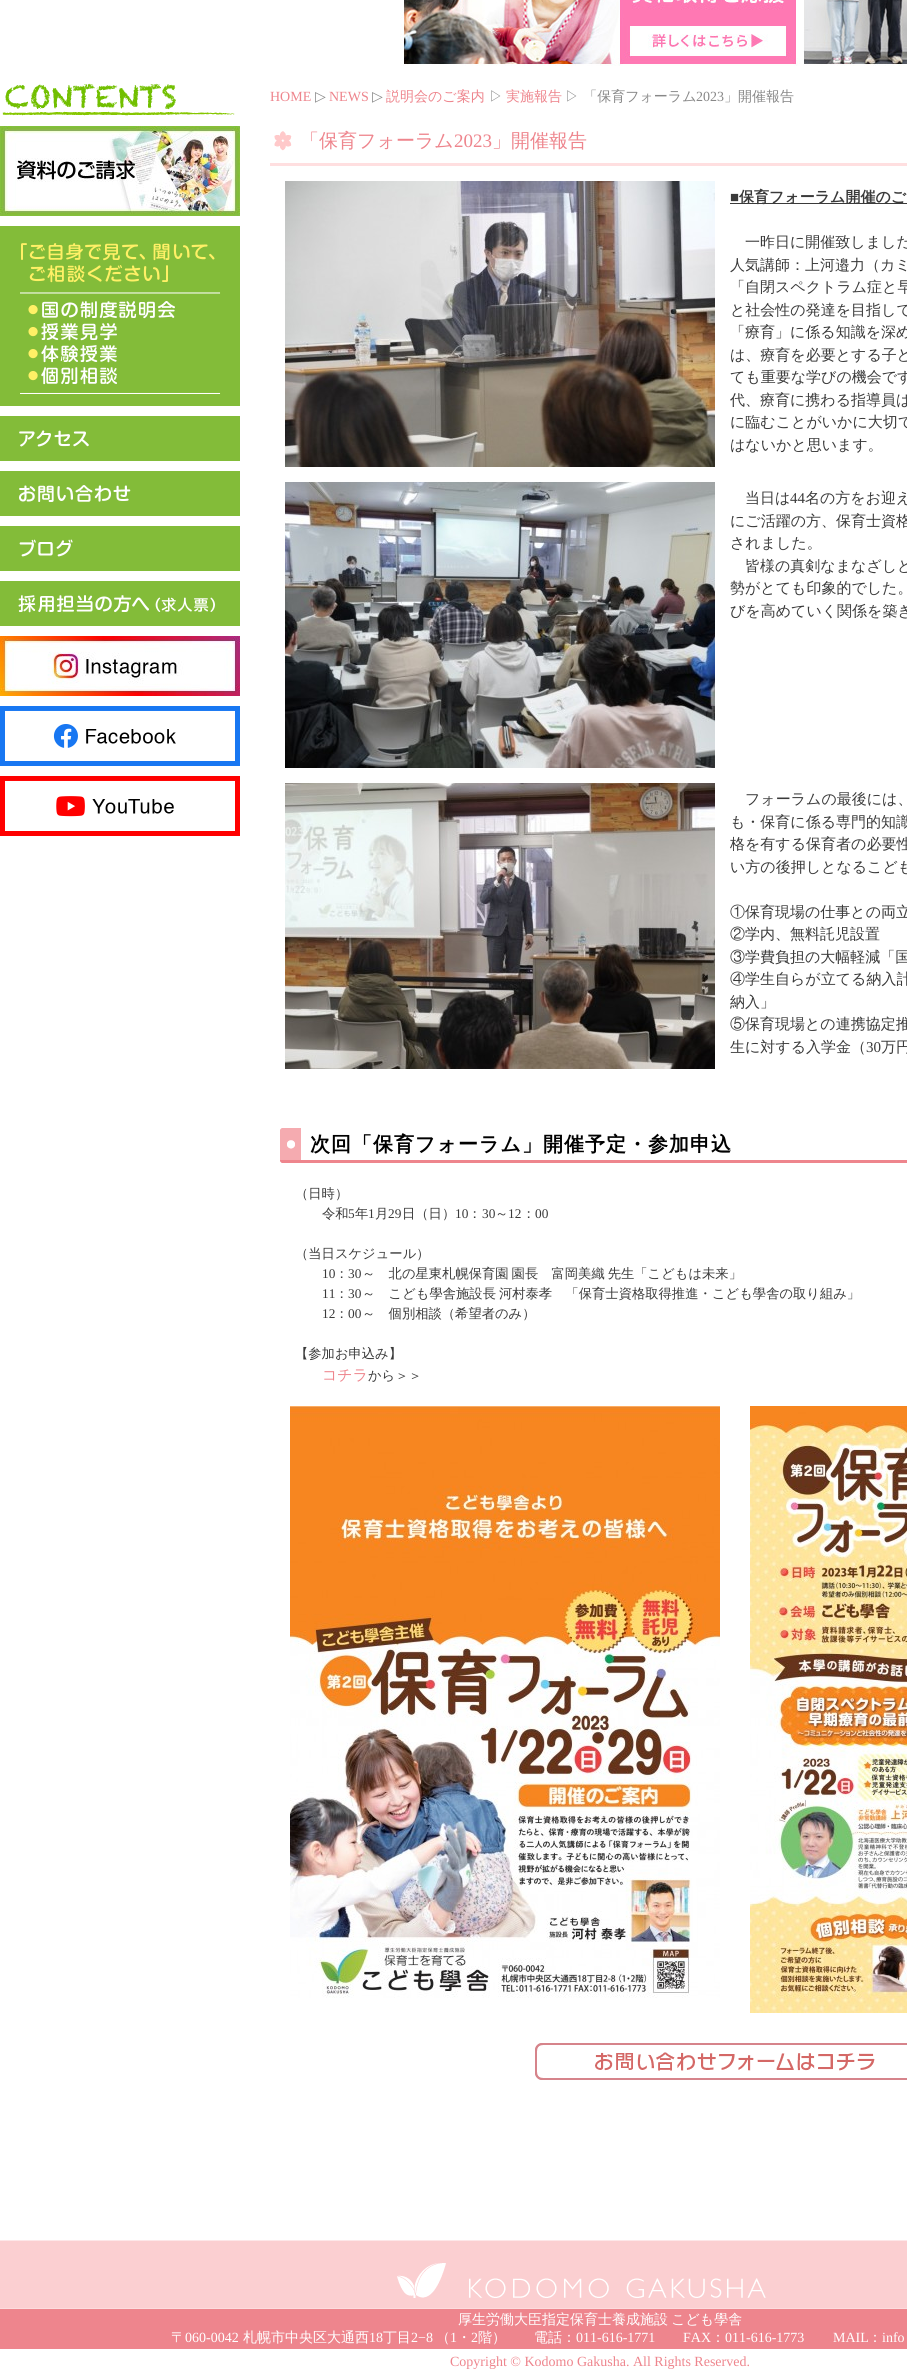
import math
import cairo



def draw_spaced(context, x, y, s, letter, word):
    context.move_to(x, y)
    for ch in s:
        context.show_text(ch)
        context.rel_move_to(letter + word * (ch == ' '), 0)


def draw_image(context, path, x, y, w, h):
    context.save()
    context.set_source_surface(cairo.ImageSurface.create_from_png(path), x, y)
    context.rectangle(x, y, w, h)
    context.fill()
    context.restore()


def draw(context):
    context.set_source_rgb(1, 1, 1)
    context.paint()
    draw_image(context, "images/1.png", 400, 0, 400, 66)
    draw_image(context, "images/2.png", 803, 0, 104, 66)
    draw_image(context, "images/3.png", 2, 83, 233, 33)
    draw_image(context, "images/4.png", 0, 126, 240, 90)
    draw_image(context, "images/5.png", 0, 226, 240, 180)
    draw_image(context, "images/6.png", 0, 416, 240, 45)
    draw_image(context, "images/7.png", 0, 471, 240, 45)
    draw_image(context, "images/8.png", 0, 526, 240, 45)
    draw_image(context, "images/9.png", 0, 581, 240, 45)
    draw_image(context, "images/10.png", 0, 636, 240, 60)
    draw_image(context, "images/11.png", 0, 706, 240, 60)
    draw_image(context, "images/12.png", 0, 776, 240, 60)
    draw_image(context, "images/13.png", 270, 131, 637, 35)
    draw_image(context, "images/14.png", 285, 181, 430, 286)
    context.set_source_rgb(58 / 255, 58 / 255, 58 / 255)
    context.rectangle(730, 203, 177, 1)
    context.fill()
    draw_image(context, "images/15.png", 285, 482, 430, 286)
    draw_image(context, "images/16.png", 285, 783, 430, 286)
    draw_image(context, "images/17.png", 280, 1128, 627, 35)
    draw_image(context, "images/18.png", 290, 1406, 430, 592)
    draw_image(context, "images/19.png", 750, 1406, 157, 607)
    draw_image(context, "images/20.png", 535, 2043, 372, 37)
    draw_image(context, "images/21.png", 0, 2240, 907, 69)
    context.set_source_rgb(238 / 255, 133 / 255, 141 / 255)
    context.rectangle(0, 2309, 907, 40)
    context.fill()
    context.select_font_face("Liberation Serif")
    context.set_font_size(14)
    context.move_to(270, 101)
    context.show_text("HOME")
    context.select_font_face("DejaVu Sans")
    context.set_source_rgb(136 / 255, 136 / 255, 136 / 255)
    context.move_to(315, 101)
    context.show_text("▷")
    context.select_font_face("Liberation Serif")
    context.set_source_rgb(238 / 255, 133 / 255, 141 / 255)
    context.move_to(329, 101)
    context.show_text("NEWS")
    context.select_font_face("DejaVu Sans")
    context.set_source_rgb(136 / 255, 136 / 255, 136 / 255)
    context.move_to(372, 101)
    context.show_text("▷")
    context.select_font_face("WenQuanYi Zen Hei Medium")
    context.set_source_rgb(238 / 255, 133 / 255, 141 / 255)
    context.move_to(386, 101)
    context.show_text("説明会のご案内")
    context.set_source_rgb(136 / 255, 136 / 255, 136 / 255)
    context.move_to(489, 101)
    context.show_text("▷")
    context.set_source_rgb(238 / 255, 133 / 255, 141 / 255)
    context.move_to(506, 101)
    context.show_text("実施報告")
    context.set_source_rgb(136 / 255, 136 / 255, 136 / 255)
    context.move_to(565, 101)
    context.show_text("▷ 「保育フォーラム")
    context.select_font_face("Liberation Serif")
    context.move_to(696, 101)
    context.show_text("2023")
    context.select_font_face("WenQuanYi Zen Hei Medium")
    context.move_to(724, 101)
    context.show_text("」開催報告")
    context.set_font_size(19)
    context.set_source_rgb(238 / 255, 133 / 255, 141 / 255)
    context.move_to(300, 147)
    context.show_text("「保育フォーラム")
    context.select_font_face("Liberation Serif")
    context.move_to(454, 147)
    context.show_text("2023")
    context.select_font_face("WenQuanYi Zen Hei Medium")
    context.move_to(492, 147)
    context.show_text("」開催報告")
    context.select_font_face("Liberation Sans", cairo.FontSlant.NORMAL, cairo.FontWeight.BOLD)
    context.set_font_size(15)
    context.set_source_rgb(58 / 255, 58 / 255, 58 / 255)
    context.move_to(730, 202)
    context.show_text("■")
    context.select_font_face("WenQuanYi Zen Hei", cairo.FontSlant.NORMAL, cairo.FontWeight.BOLD)
    context.move_to(739, 202)
    context.show_text("保育フォーラム開催のご")
    context.select_font_face("WenQuanYi Zen Hei Medium")
    context.move_to(745, 247)
    context.show_text("一昨日に開催致しました")
    context.move_to(730, 270)
    context.show_text("人気講師：上河邉力（カミ")
    context.move_to(730, 292)
    context.show_text("「自閉スペクトラム症と早")
    context.move_to(730, 315)
    context.show_text("と社会性の発達を目指して")
    context.move_to(730, 337)
    context.show_text("「療育」に係る知識を深め")
    context.move_to(730, 360)
    context.show_text("は、療育を必要とする子ど")
    context.move_to(730, 382)
    context.show_text("ても重要な学びの機会です")
    context.move_to(730, 405)
    context.show_text("代、療育に携わる指導員は")
    context.move_to(730, 427)
    context.show_text("に臨むことがいかに大切で")
    context.move_to(730, 450)
    context.show_text("はないかと思います。")
    context.move_to(745, 503)
    context.show_text("当日は")
    context.select_font_face("Liberation Serif")
    context.move_to(790, 503)
    context.show_text("44")
    context.select_font_face("WenQuanYi Zen Hei Medium")
    context.move_to(805, 503)
    context.show_text("名の方をお迎え")
    context.move_to(730, 526)
    context.show_text("にご活躍の方、保育士資格")
    context.move_to(730, 548)
    context.show_text("されました。")
    context.move_to(745, 571)
    context.show_text("皆様の真剣なまなざしと")
    context.move_to(730, 593)
    context.show_text("勢がとても印象的でした。")
    context.move_to(730, 616)
    context.show_text("びを高めていく関係を築き")
    context.move_to(745, 804)
    context.show_text("フォーラムの最後には、")
    context.move_to(730, 827)
    context.show_text("も・保育に係る専門的知識")
    context.move_to(730, 849)
    context.show_text("格を有する保育者の必要性")
    context.move_to(730, 872)
    context.show_text("い方の後押しとなるこども")
    context.move_to(730, 917)
    context.show_text("①保育現場の仕事との両立")
    context.move_to(730, 939)
    context.show_text("②学内、無料託児設置")
    context.move_to(730, 962)
    context.show_text("③学費負担の大幅軽減「国")
    context.move_to(730, 984)
    context.show_text("④学生自らが立てる納入計")
    context.move_to(730, 1007)
    context.show_text("納入」")
    context.move_to(730, 1029)
    context.show_text("⑤保育現場との連携協定推")
    context.move_to(730, 1052)
    context.show_text("生に対する入学金（")
    context.select_font_face("Liberation Serif")
    context.move_to(866, 1052)
    context.show_text("30")
    context.select_font_face("WenQuanYi Zen Hei Medium")
    context.move_to(881, 1052)
    context.show_text("万円")
    context.select_font_face("WenQuanYi Zen Hei", cairo.FontSlant.NORMAL, cairo.FontWeight.BOLD)
    context.set_font_size(20)
    context.set_source_rgb(0, 0, 0)
    draw_spaced(context, 310, 1151, "次回「保育フォーラム」開催予定・参加申込", 1, 0)
    context.select_font_face("WenQuanYi Zen Hei Medium")
    context.set_font_size(13.3)
    context.set_source_rgb(58 / 255, 58 / 255, 58 / 255)
    context.move_to(295, 1198)
    context.show_text("（日時）")
    context.move_to(322, 1218)
    context.show_text("令和")
    context.select_font_face("Liberation Serif")
    context.move_to(348, 1218)
    context.show_text("5")
    context.select_font_face("WenQuanYi Zen Hei Medium")
    context.move_to(355, 1218)
    context.show_text("年")
    context.select_font_face("Liberation Serif")
    context.move_to(368, 1218)
    context.show_text("1")
    context.select_font_face("WenQuanYi Zen Hei Medium")
    context.move_to(375, 1218)
    context.show_text("月")
    context.select_font_face("Liberation Serif")
    context.move_to(388, 1218)
    context.show_text("29")
    context.select_font_face("WenQuanYi Zen Hei Medium")
    context.move_to(402, 1218)
    context.show_text("日（日）")
    context.select_font_face("Liberation Serif")
    context.move_to(455, 1218)
    context.show_text("10")
    context.select_font_face("WenQuanYi Zen Hei Medium")
    context.move_to(468, 1218)
    context.show_text("：")
    context.select_font_face("Liberation Serif")
    context.move_to(482, 1218)
    context.show_text("30")
    context.select_font_face("WenQuanYi Zen Hei Medium")
    context.move_to(495, 1218)
    context.show_text("～")
    context.select_font_face("Liberation Serif")
    context.move_to(508, 1218)
    context.show_text("12")
    context.select_font_face("WenQuanYi Zen Hei Medium")
    context.move_to(522, 1218)
    context.show_text("：")
    context.select_font_face("Liberation Serif")
    context.move_to(535, 1218)
    context.show_text("00")
    context.select_font_face("WenQuanYi Zen Hei Medium")
    context.move_to(295, 1258)
    context.show_text("（当日スケジュール）")
    context.select_font_face("Liberation Serif")
    context.move_to(322, 1278)
    context.show_text("10")
    context.select_font_face("WenQuanYi Zen Hei Medium")
    context.move_to(335, 1278)
    context.show_text("：")
    context.select_font_face("Liberation Serif")
    context.move_to(348, 1278)
    context.show_text("30")
    context.select_font_face("WenQuanYi Zen Hei Medium")
    draw_spaced(context, 362, 1278, "～　北の星東札幌保育園 園長　富岡美織 先生「こどもは未来」", 0, -1)
    context.select_font_face("Liberation Serif")
    context.move_to(322, 1298)
    context.show_text("11")
    context.select_font_face("WenQuanYi Zen Hei Medium")
    context.move_to(335, 1298)
    context.show_text("：")
    context.select_font_face("Liberation Serif")
    context.move_to(348, 1298)
    context.show_text("30")
    context.select_font_face("WenQuanYi Zen Hei Medium")
    draw_spaced(context, 362, 1298, "～　こども學舎施設長 河村泰孝　「保育士資格取得推進・", 0, -1)
    context.move_to(712, 1298)
    context.show_text("こども學舎の取り組み」")
    context.select_font_face("Liberation Serif")
    context.move_to(322, 1318)
    context.show_text("12")
    context.select_font_face("WenQuanYi Zen Hei Medium")
    context.move_to(335, 1318)
    context.show_text("：")
    context.select_font_face("Liberation Serif")
    context.move_to(348, 1318)
    context.show_text("00")
    context.select_font_face("WenQuanYi Zen Hei Medium")
    context.move_to(362, 1318)
    context.show_text("～　個別相談（希望者のみ）")
    context.move_to(295, 1358)
    context.show_text("【参加お申込み】")
    context.set_font_size(15)
    context.set_source_rgb(238 / 255, 133 / 255, 141 / 255)
    context.move_to(322, 1380)
    context.show_text("コチラ")
    context.set_font_size(13.3)
    context.set_source_rgb(58 / 255, 58 / 255, 58 / 255)
    context.move_to(368, 1380)
    context.show_text("から＞＞")
    context.set_font_size(14)
    context.set_source_rgb(1, 1, 1)
    draw_spaced(context, 458, 2324, "厚生労働大臣指定保育士養成施設 こども學舎", 0, -1)
    context.move_to(171, 2342)
    context.show_text("〒")
    context.select_font_face("Liberation Serif")
    context.move_to(185, 2342)
    context.show_text("060-0042")
    context.select_font_face("WenQuanYi Zen Hei Medium")
    context.move_to(243, 2342)
    context.show_text("札幌市中央区大通西")
    context.select_font_face("Liberation Serif")
    context.move_to(369, 2342)
    context.show_text("18")
    context.select_font_face("WenQuanYi Zen Hei Medium")
    context.move_to(383, 2342)
    context.show_text("丁目")
    context.select_font_face("Liberation Serif")
    context.move_to(411, 2342)
    context.show_text("2−8")
    context.select_font_face("WenQuanYi Zen Hei Medium")
    context.move_to(436, 2342)
    context.show_text("（")
    context.select_font_face("Liberation Serif")
    context.move_to(450, 2342)
    context.show_text("1")
    context.select_font_face("WenQuanYi Zen Hei Medium")
    context.move_to(457, 2342)
    context.show_text("・")
    context.select_font_face("Liberation Serif")
    context.move_to(471, 2342)
    context.show_text("2")
    context.select_font_face("WenQuanYi Zen Hei Medium")
    context.move_to(478, 2342)
    context.show_text("階）　　電話：")
    context.select_font_face("Liberation Serif")
    context.move_to(576, 2342)
    context.show_text("011-616-1771")
    context.move_to(683, 2342)
    context.show_text("FAX")
    context.select_font_face("WenQuanYi Zen Hei Medium")
    context.move_to(711, 2342)
    context.show_text("：")
    context.select_font_face("Liberation Serif")
    context.move_to(725, 2342)
    context.show_text("011-616-1773")
    context.move_to(833, 2342)
    context.show_text("MAIL")
    context.select_font_face("WenQuanYi Zen Hei Medium")
    context.move_to(868, 2342)
    context.show_text("：")
    context.select_font_face("Liberation Serif")
    context.move_to(882, 2342)
    context.show_text("info")
    context.set_source_rgb(238 / 255, 133 / 255, 141 / 255)
    context.move_to(450, 2366)
    context.show_text("Copyright © Kodomo Gakusha. All Rights Reserved.")


surface = cairo.ImageSurface(cairo.Format.RGB24, 907, 2375)
context = cairo.Context(surface)
options = cairo.FontOptions()
options.set_hint_metrics(cairo.HintMetrics.OFF)
options.set_hint_style(cairo.HintStyle.NONE)
context.set_font_options(options)
context.set_miter_limit(4)
draw(context)
surface.write_to_png("out.png")
